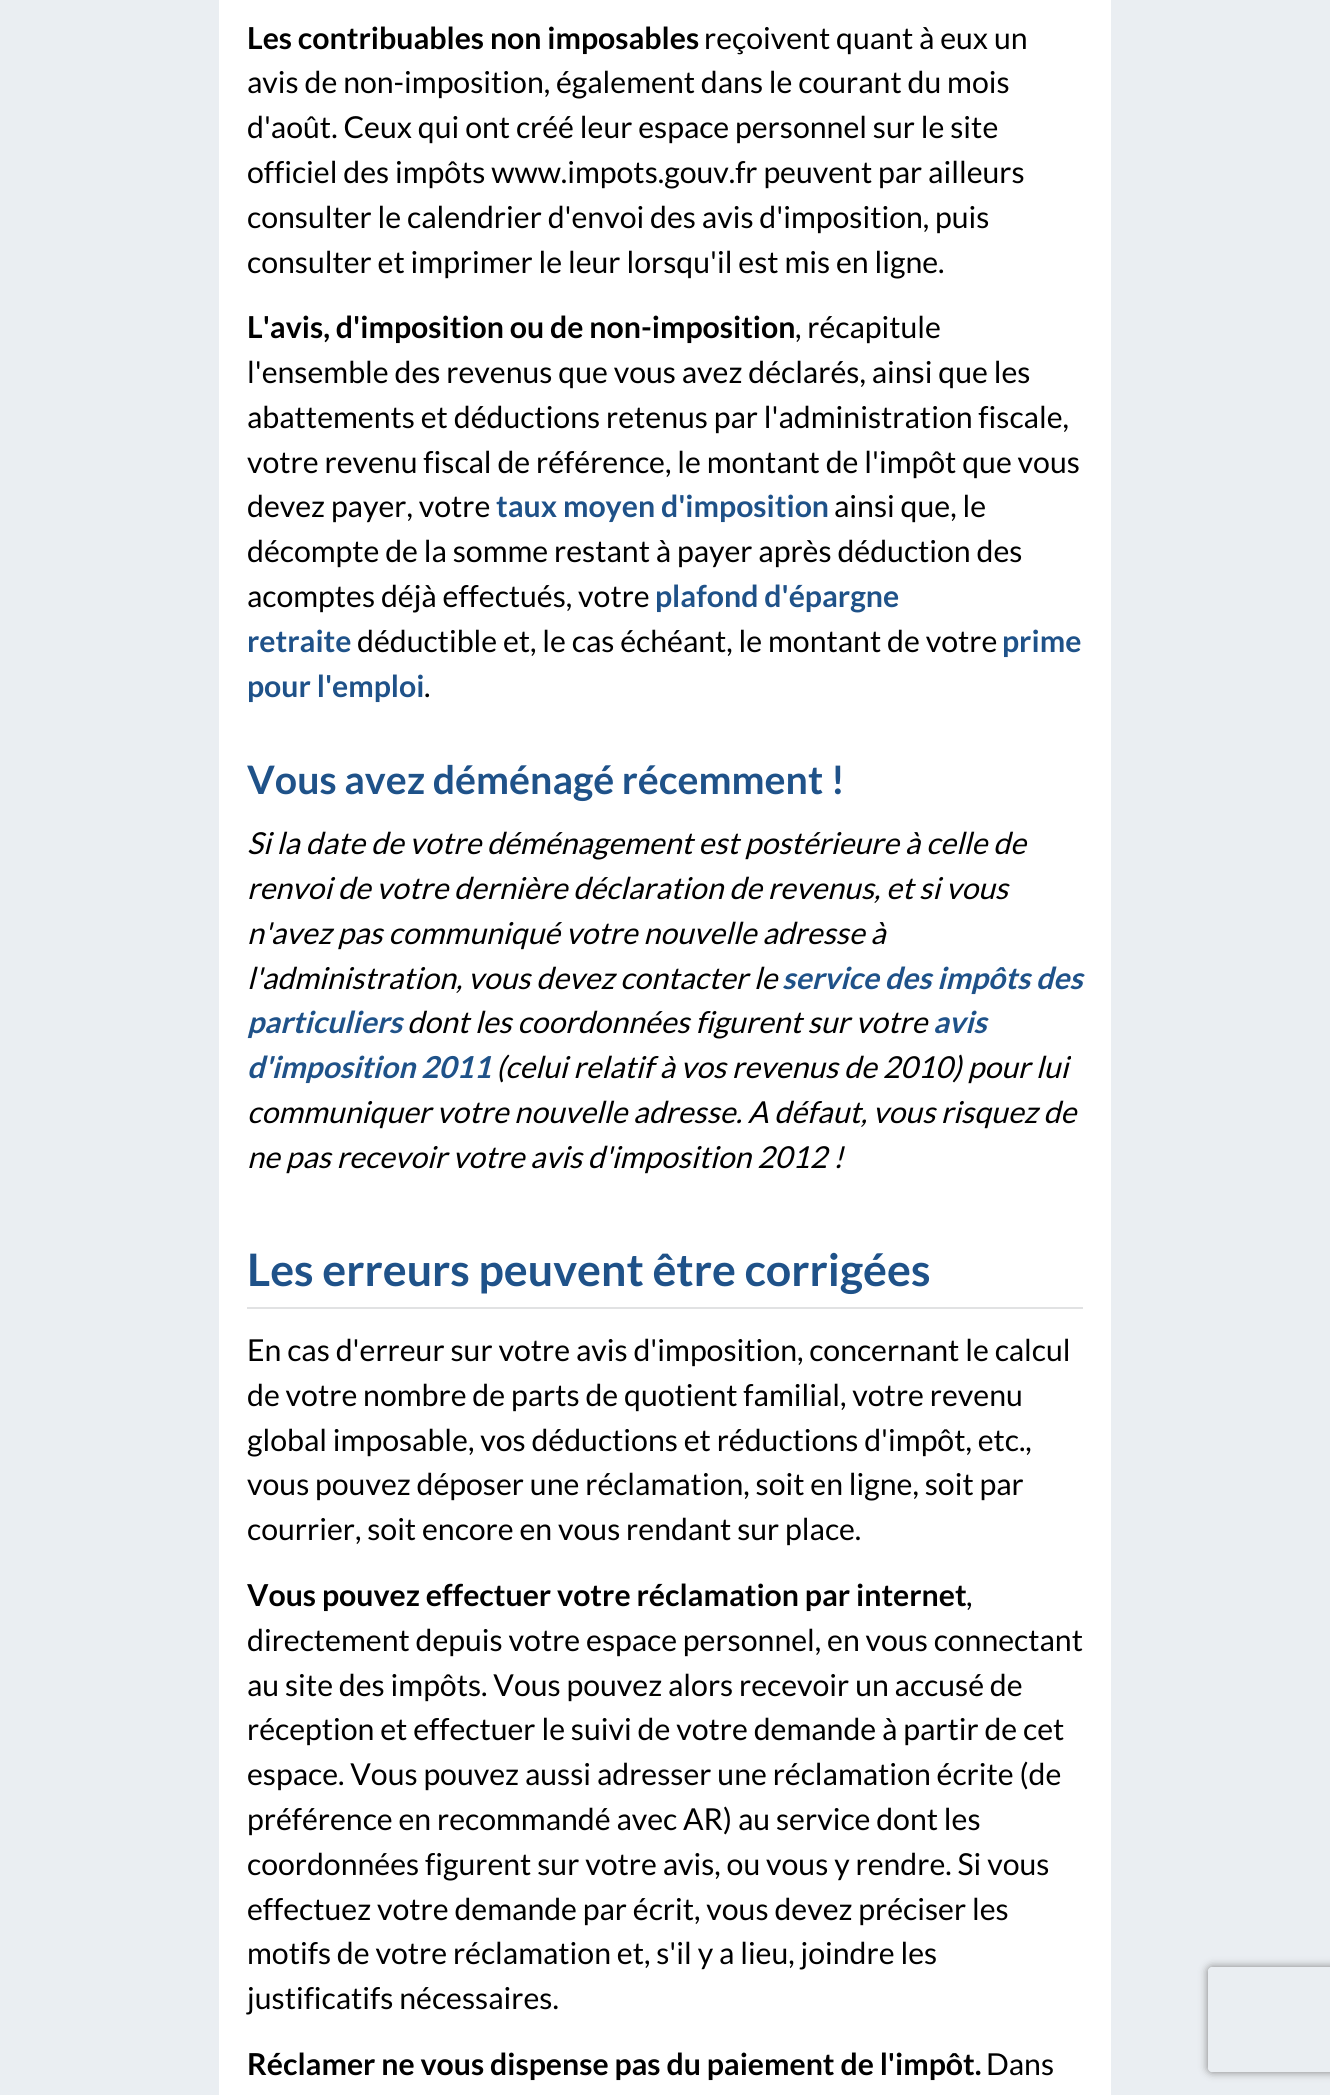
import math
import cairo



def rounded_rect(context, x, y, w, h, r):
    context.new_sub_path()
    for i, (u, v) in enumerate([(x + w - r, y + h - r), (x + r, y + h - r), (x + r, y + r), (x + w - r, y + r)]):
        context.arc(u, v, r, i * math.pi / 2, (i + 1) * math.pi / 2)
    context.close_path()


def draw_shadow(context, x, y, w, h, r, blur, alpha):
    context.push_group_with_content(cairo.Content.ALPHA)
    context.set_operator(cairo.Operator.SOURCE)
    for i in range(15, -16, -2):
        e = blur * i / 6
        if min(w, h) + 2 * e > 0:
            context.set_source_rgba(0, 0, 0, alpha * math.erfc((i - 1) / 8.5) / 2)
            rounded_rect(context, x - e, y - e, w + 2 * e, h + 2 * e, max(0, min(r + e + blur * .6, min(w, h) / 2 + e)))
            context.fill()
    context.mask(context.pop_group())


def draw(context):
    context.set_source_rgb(234 / 255, 238 / 255, 242 / 255)
    context.paint()
    context.set_source_rgb(1, 1, 1)
    context.rectangle(219, 0, 892, 2095)
    context.fill()
    context.set_source_rgb(225 / 255, 226 / 255, 227 / 255)
    context.rectangle(247, 1307, 836, 2)
    context.fill()
    context.save()
    context.set_fill_rule(cairo.FillRule.EVEN_ODD)
    context.new_path()
    context.move_to(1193, 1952)
    context.line_to(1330, 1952)
    context.line_to(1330, 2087)
    context.line_to(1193, 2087)
    context.close_path()
    context.move_to(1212, 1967)
    context.line_to(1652, 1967)
    context.curve_to(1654, 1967, 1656, 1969, 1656, 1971)
    context.line_to(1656, 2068)
    context.curve_to(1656, 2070, 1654, 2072, 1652, 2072)
    context.line_to(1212, 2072)
    context.curve_to(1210, 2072, 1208, 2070, 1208, 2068)
    context.line_to(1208, 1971)
    context.curve_to(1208, 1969, 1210, 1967, 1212, 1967)
    context.close_path()
    context.clip()
    context.set_source_rgb(128 / 255, 128 / 255, 128 / 255)
    draw_shadow(context, 1208, 1967, 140, 105, 4, 4.5, 1)
    context.restore()
    context.select_font_face("Lato", cairo.FontSlant.NORMAL, cairo.FontWeight.BOLD)
    context.set_font_size(30.25)
    context.set_source_rgb(0, 0, 0)
    context.move_to(247, 49)
    context.show_text("Les contribuables non imposables")
    context.select_font_face("Lato")
    context.move_to(704, 49)
    context.show_text("reçoivent quant à eux un")
    context.move_to(247, 93)
    context.show_text("avis de non-imposition, également dans le courant du mois")
    context.move_to(247, 138)
    context.show_text("d'août. Ceux qui ont créé leur espace personnel sur le site")
    context.move_to(247, 183)
    context.show_text("officiel des impôts www.impots.gouv.fr peuvent par ailleurs")
    context.move_to(247, 228)
    context.show_text("consulter le calendrier d'envoi des avis d'imposition, puis")
    context.move_to(247, 273)
    context.show_text("consulter et imprimer le leur lorsqu'il est mis en ligne.")
    context.select_font_face("Lato", cairo.FontSlant.NORMAL, cairo.FontWeight.BOLD)
    context.move_to(247, 338)
    context.show_text("L'avis, d'imposition ou de non-imposition")
    context.select_font_face("Lato")
    context.move_to(795, 338)
    context.show_text(", récapitule")
    context.move_to(247, 383)
    context.show_text("l'ensemble des revenus que vous avez déclarés, ainsi que les")
    context.move_to(247, 428)
    context.show_text("abattements et déductions retenus par l'administration fiscale,")
    context.move_to(247, 473)
    context.show_text("votre revenu fiscal de référence, le montant de l'impôt que vous")
    context.move_to(247, 517)
    context.show_text("devez payer, votre")
    context.select_font_face("Lato", cairo.FontSlant.NORMAL, cairo.FontWeight.BOLD)
    context.set_source_rgb(31 / 255, 82 / 255, 137 / 255)
    context.move_to(496, 517)
    context.show_text("taux moyen d'imposition")
    context.select_font_face("Lato")
    context.set_source_rgb(0, 0, 0)
    context.move_to(834, 517)
    context.show_text("ainsi que, le")
    context.move_to(247, 562)
    context.show_text("décompte de la somme restant à payer après déduction des")
    context.move_to(247, 607)
    context.show_text("acomptes déjà effectués, votre")
    context.select_font_face("Lato", cairo.FontSlant.NORMAL, cairo.FontWeight.BOLD)
    context.set_source_rgb(31 / 255, 82 / 255, 137 / 255)
    context.move_to(655, 607)
    context.show_text("plafond d'épargne")
    context.move_to(247, 652)
    context.show_text("retraite")
    context.select_font_face("Lato")
    context.set_source_rgb(0, 0, 0)
    context.move_to(357, 652)
    context.show_text("déductible et, le cas échéant, le montant de votre")
    context.select_font_face("Lato", cairo.FontSlant.NORMAL, cairo.FontWeight.BOLD)
    context.set_source_rgb(31 / 255, 82 / 255, 137 / 255)
    context.move_to(1002, 652)
    context.show_text("prime")
    context.move_to(247, 697)
    context.show_text("pour l'emploi")
    context.select_font_face("Lato")
    context.set_source_rgb(0, 0, 0)
    context.move_to(424, 697)
    context.show_text(".")
    context.select_font_face("Lato", cairo.FontSlant.NORMAL, cairo.FontWeight.BOLD)
    context.set_font_size(39.25)
    context.set_source_rgb(31 / 255, 82 / 255, 137 / 255)
    context.move_to(247, 794)
    context.show_text("Vous avez déménagé récemment !")
    context.select_font_face("Lato", cairo.FontSlant.ITALIC)
    context.set_font_size(30.25)
    context.set_source_rgb(0, 0, 0)
    context.move_to(247, 854)
    context.show_text("Si la date de votre déménagement est postérieure à celle de")
    context.move_to(247, 899)
    context.show_text("renvoi de votre dernière déclaration de revenus, et si vous")
    context.move_to(247, 944)
    context.show_text("n'avez pas communiqué votre nouvelle adresse à")
    context.move_to(247, 989)
    context.show_text("l'administration, vous devez contacter le")
    context.select_font_face("Lato", cairo.FontSlant.ITALIC, cairo.FontWeight.BOLD)
    context.set_source_rgb(31 / 255, 82 / 255, 137 / 255)
    context.move_to(782, 989)
    context.show_text("service des impôts des")
    context.move_to(247, 1033)
    context.show_text("particuliers")
    context.select_font_face("Lato", cairo.FontSlant.ITALIC)
    context.set_source_rgb(0, 0, 0)
    context.move_to(407, 1033)
    context.show_text("dont les coordonnées figurent sur votre")
    context.select_font_face("Lato", cairo.FontSlant.ITALIC, cairo.FontWeight.BOLD)
    context.set_source_rgb(31 / 255, 82 / 255, 137 / 255)
    context.move_to(933, 1033)
    context.show_text("avis")
    context.move_to(247, 1078)
    context.show_text("d'imposition 2011")
    context.select_font_face("Lato", cairo.FontSlant.ITALIC)
    context.set_source_rgb(0, 0, 0)
    context.move_to(496, 1078)
    context.show_text("(celui relatif à vos revenus de 2010) pour lui")
    context.move_to(247, 1123)
    context.show_text("communiquer votre nouvelle adresse. A défaut, vous risquez de")
    context.move_to(247, 1168)
    context.show_text("ne pas recevoir votre avis d'imposition 2012 !")
    context.select_font_face("Lato", cairo.FontSlant.NORMAL, cairo.FontWeight.BOLD)
    context.set_font_size(44.75)
    context.set_source_rgb(31 / 255, 82 / 255, 137 / 255)
    context.move_to(247, 1286)
    context.show_text("Les erreurs peuvent être corrigées")
    context.select_font_face("Lato")
    context.set_font_size(30.25)
    context.set_source_rgb(0, 0, 0)
    context.move_to(247, 1361)
    context.show_text("En cas d'erreur sur votre avis d'imposition, concernant le calcul")
    context.move_to(247, 1406)
    context.show_text("de votre nombre de parts de quotient familial, votre revenu")
    context.move_to(247, 1451)
    context.show_text("global imposable, vos déductions et réductions d'impôt, etc.,")
    context.move_to(247, 1495)
    context.show_text("vous pouvez déposer une réclamation, soit en ligne, soit par")
    context.move_to(247, 1540)
    context.show_text("courrier, soit encore en vous rendant sur place.")
    context.select_font_face("Lato", cairo.FontSlant.NORMAL, cairo.FontWeight.BOLD)
    context.move_to(247, 1606)
    context.show_text("Vous pouvez effectuer votre réclamation par internet")
    context.select_font_face("Lato")
    context.move_to(966, 1606)
    context.show_text(",")
    context.move_to(247, 1651)
    context.show_text("directement depuis votre espace personnel, en vous connectant")
    context.move_to(247, 1696)
    context.show_text("au site des impôts. Vous pouvez alors recevoir un accusé de")
    context.move_to(247, 1740)
    context.show_text("réception et effectuer le suivi de votre demande à partir de cet")
    context.move_to(247, 1785)
    context.show_text("espace. Vous pouvez aussi adresser une réclamation écrite (de")
    context.move_to(247, 1830)
    context.show_text("préférence en recommandé avec AR) au service dont les")
    context.move_to(247, 1875)
    context.show_text("coordonnées figurent sur votre avis, ou vous y rendre. Si vous")
    context.move_to(247, 1920)
    context.show_text("effectuez votre demande par écrit, vous devez préciser les")
    context.move_to(247, 1964)
    context.show_text("motifs de votre réclamation et, s'il y a lieu, joindre les")
    context.move_to(247, 2009)
    context.show_text("justificatifs nécessaires.")
    context.select_font_face("Lato", cairo.FontSlant.NORMAL, cairo.FontWeight.BOLD)
    context.move_to(247, 2075)
    context.show_text("Réclamer ne vous dispense pas du paiement de l'impôt.")
    context.select_font_face("Lato")
    context.move_to(986, 2075)
    context.show_text("Dans")


surface = cairo.ImageSurface(cairo.Format.RGB24, 1330, 2095)
context = cairo.Context(surface)
options = cairo.FontOptions()
options.set_hint_metrics(cairo.HintMetrics.OFF)
options.set_hint_style(cairo.HintStyle.NONE)
context.set_font_options(options)
context.set_miter_limit(4)
draw(context)
surface.write_to_png("out.png")
